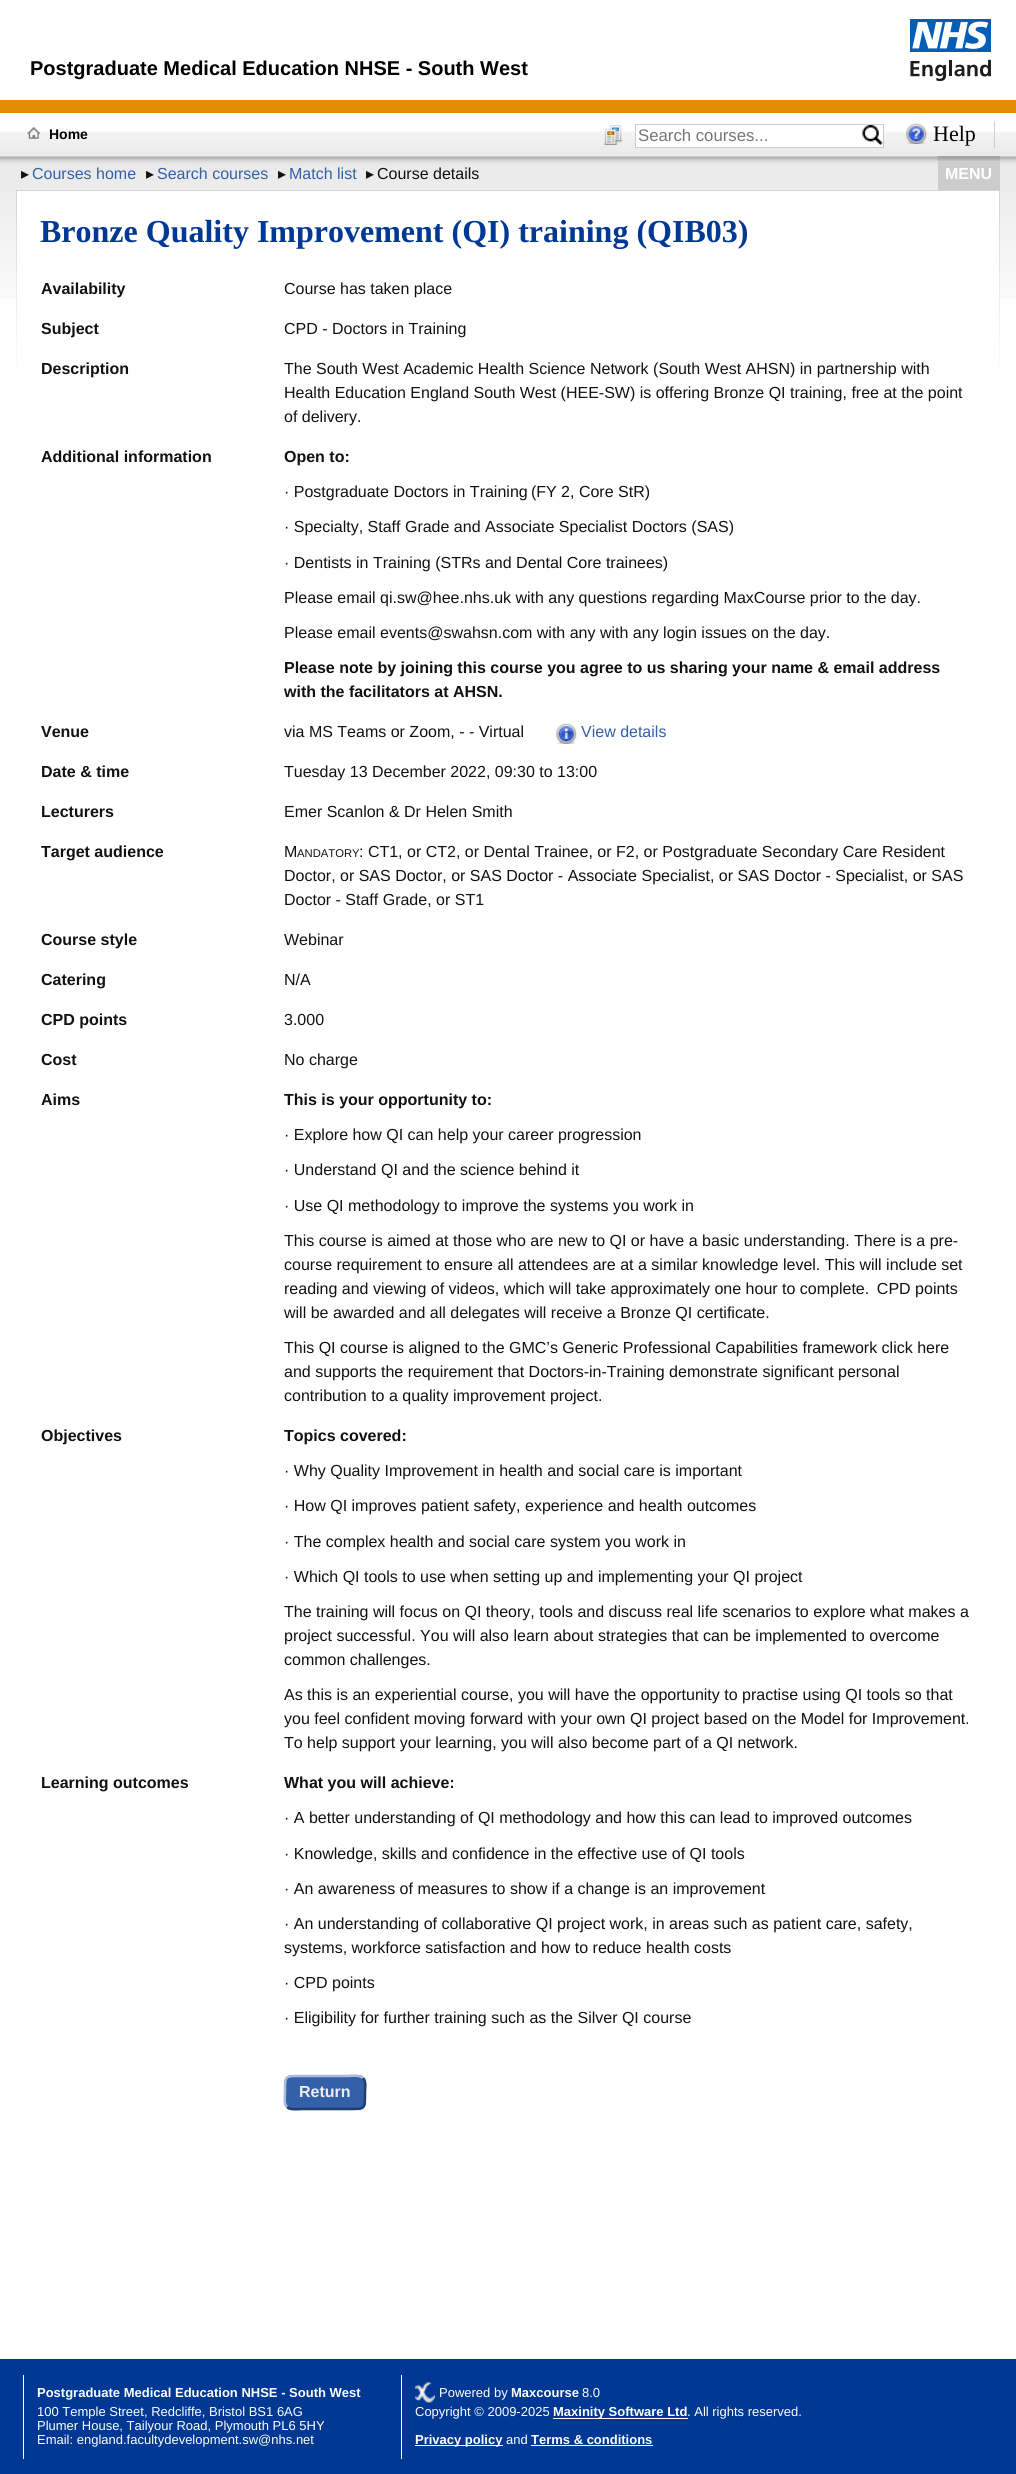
import math
import cairo



def rounded_rect(context, x, y, w, h, r):
    context.new_sub_path()
    for i, (u, v) in enumerate([(x + w - r, y + h - r), (x + r, y + h - r), (x + r, y + r), (x + w - r, y + r)]):
        context.arc(u, v, r, i * math.pi / 2, (i + 1) * math.pi / 2)
    context.close_path()


def draw_image(context, path, x, y, w, h):
    context.save()
    context.set_source_surface(cairo.ImageSurface.create_from_png(path), x, y)
    context.rectangle(x, y, w, h)
    context.fill()
    context.restore()


def draw(context):
    context.set_source_rgb(1, 1, 1)
    context.paint()
    draw_image(context, "images/1.png", 910, 19, 81, 62)
    draw_image(context, "images/7.png", 0, 156, 1016, 143)
    draw_image(context, "images/2.png", 0, 113, 1016, 44)
    context.set_source_rgb(226 / 255, 140 / 255, 5 / 255)
    context.rectangle(0, 100, 1016, 13)
    context.fill()
    draw_image(context, "images/3.png", 27, 127, 13, 12)
    draw_image(context, "images/4.png", 603, 125, 20, 20)
    context.set_source_rgb(1, 1, 1)
    context.rectangle(636, 131, 247, 16)
    context.fill()
    context.rectangle(635.5, 124.5, 248, 23)
    context.set_source_rgb(204 / 255, 204 / 255, 204 / 255)
    context.set_line_width(1)
    context.stroke()
    draw_image(context, "images/5.png", 862, 125, 21, 20)
    draw_image(context, "images/6.png", 906, 123, 21, 21)
    context.rectangle(994, 121, 1, 27)
    context.fill()
    context.rectangle(938, 157, 62, 33)
    context.fill()
    draw_image(context, "images/8.png", 937, 156, 63, 5)
    context.set_source_rgb(1, 1, 1)
    context.rectangle(16, 191, 984, 108)
    context.fill()
    context.set_source_rgb(212 / 255, 212 / 255, 212 / 255)
    context.rectangle(16, 190, 984, 1)
    context.fill()
    gradient = cairo.LinearGradient(17, 191, 17, 379)
    gradient.add_color_stop_rgba(0, 212 / 255, 212 / 255, 212 / 255, 1)
    gradient.add_color_stop_rgba(1, 1, 1, 1, 1)
    context.set_source(gradient)
    context.rectangle(16, 191, 1, 177)
    context.fill()
    draw_image(context, "images/9.png", 556, 723, 21, 21)
    context.set_source_rgb(51 / 255, 96 / 255, 169 / 255)
    rounded_rect(context, 284, 2075, 82, 35, 8)
    context.fill()
    context.new_path()
    context.move_to(363, 2078)
    context.curve_to(366.5, 2081.5, 365, 2088.5, 365, 2092.5)
    context.curve_to(365, 2110, 365.5, 2109, 347.5, 2109)
    context.line_to(302.5, 2109)
    context.curve_to(299.5, 2109, 290.5, 2110.5, 287, 2107)
    context.set_source_rgb(33 / 255, 62 / 255, 110 / 255)
    context.set_line_width(2.5)
    context.stroke()
    context.new_path()
    context.move_to(287, 2107)
    context.curve_to(283.5, 2103.5, 285, 2096.5, 285, 2092.5)
    context.curve_to(285, 2075, 284.5, 2076, 302.5, 2076)
    context.line_to(347.5, 2076)
    context.curve_to(350.5, 2076, 359.5, 2074.5, 363, 2078)
    context.set_source_rgb(169 / 255, 188 / 255, 219 / 255)
    context.stroke()
    gradient = cairo.LinearGradient(999, 191, 999, 379)
    gradient.add_color_stop_rgba(0, 212 / 255, 212 / 255, 212 / 255, 1)
    gradient.add_color_stop_rgba(1, 1, 1, 1, 1)
    context.set_source(gradient)
    context.rectangle(999, 191, 1, 177)
    context.fill()
    context.set_source_rgb(0, 56 / 255, 147 / 255)
    context.rectangle(0, 2359, 1016, 115)
    context.fill()
    context.set_source_rgb(1, 1, 1)
    context.rectangle(23, 2375, 1, 84)
    context.fill()
    context.rectangle(401, 2375, 1, 84)
    context.fill()
    draw_image(context, "images/10.png", 415, 2382, 20, 21)
    context.rectangle(553, 2418, 135, 1)
    context.fill()
    context.rectangle(415, 2445, 88, 1)
    context.fill()
    context.rectangle(531, 2445, 122, 1)
    context.fill()
    context.select_font_face("Liberation Sans", cairo.FontSlant.NORMAL, cairo.FontWeight.BOLD)
    context.set_font_size(20)
    context.set_source_rgb(0, 0, 0)
    context.move_to(30, 75)
    context.show_text("Postgraduate Medical Education NHSE - South West")
    context.set_font_size(14)
    context.move_to(49, 139)
    context.show_text("Home")
    context.select_font_face("Liberation Sans")
    context.set_font_size(16.75)
    context.set_source_rgb(117 / 255, 117 / 255, 117 / 255)
    context.move_to(638, 141)
    context.show_text("Search courses...")
    context.select_font_face("Liberation Serif")
    context.set_font_size(22)
    context.set_source_rgb(0, 0, 0)
    context.move_to(933, 141)
    context.show_text("Help")
    context.select_font_face("DejaVu Sans")
    context.set_font_size(16)
    context.set_source_rgb(17 / 255, 17 / 255, 17 / 255)
    context.move_to(21, 179)
    context.show_text("▸")
    context.select_font_face("Liberation Sans")
    context.set_source_rgb(51 / 255, 96 / 255, 169 / 255)
    context.move_to(32, 179)
    context.show_text("Courses home")
    context.select_font_face("DejaVu Sans")
    context.set_source_rgb(17 / 255, 17 / 255, 17 / 255)
    context.move_to(146, 179)
    context.show_text("▸")
    context.select_font_face("Liberation Sans")
    context.set_source_rgb(51 / 255, 96 / 255, 169 / 255)
    context.move_to(157, 179)
    context.show_text("Search courses")
    context.select_font_face("DejaVu Sans")
    context.set_source_rgb(17 / 255, 17 / 255, 17 / 255)
    context.move_to(278, 179)
    context.show_text("▸")
    context.select_font_face("Liberation Sans")
    context.set_source_rgb(51 / 255, 96 / 255, 169 / 255)
    context.move_to(289, 179)
    context.show_text("Match list")
    context.select_font_face("DejaVu Sans")
    context.set_source_rgb(17 / 255, 17 / 255, 17 / 255)
    context.move_to(366, 179)
    context.show_text("▸")
    context.select_font_face("Liberation Sans")
    context.move_to(377, 179)
    context.show_text("Course details")
    context.select_font_face("Liberation Sans", cairo.FontSlant.NORMAL, cairo.FontWeight.BOLD)
    context.set_source_rgb(1, 1, 1)
    context.move_to(945, 179)
    context.show_text("MENU")
    context.select_font_face("Liberation Serif", cairo.FontSlant.NORMAL, cairo.FontWeight.BOLD)
    context.set_font_size(32)
    context.set_source_rgb(0, 56 / 255, 147 / 255)
    context.move_to(40, 242)
    context.show_text("Bronze Quality Improvement (QI) training (QIB03)")
    context.select_font_face("Liberation Sans", cairo.FontSlant.NORMAL, cairo.FontWeight.BOLD)
    context.set_font_size(16)
    context.set_source_rgb(17 / 255, 17 / 255, 17 / 255)
    context.move_to(41, 294)
    context.show_text("Availability")
    context.select_font_face("Liberation Sans")
    context.move_to(284, 294)
    context.show_text("Course has taken place")
    context.select_font_face("Liberation Sans", cairo.FontSlant.NORMAL, cairo.FontWeight.BOLD)
    context.move_to(41, 334)
    context.show_text("Subject")
    context.select_font_face("Liberation Sans")
    context.move_to(284, 334)
    context.show_text("CPD - Doctors in Training")
    context.select_font_face("Liberation Sans", cairo.FontSlant.NORMAL, cairo.FontWeight.BOLD)
    context.move_to(41, 374)
    context.show_text("Description")
    context.select_font_face("Liberation Sans")
    context.move_to(284, 374)
    context.show_text("The South West Academic Health Science Network (South West AHSN) in partnership with")
    context.move_to(284, 398)
    context.show_text("Health Education England South West (HEE-SW) is offering Bronze QI training, free at the point")
    context.move_to(284, 422)
    context.show_text("of delivery.")
    context.select_font_face("Liberation Sans", cairo.FontSlant.NORMAL, cairo.FontWeight.BOLD)
    context.move_to(41, 462)
    context.show_text("Additional information")
    context.move_to(284, 462)
    context.show_text("Open to:")
    context.select_font_face("Liberation Sans")
    context.move_to(284, 497)
    context.show_text("· Postgraduate Doctors in Training (FY 2, Core StR)")
    context.move_to(284, 532)
    context.show_text("· Specialty, Staff Grade and Associate Specialist Doctors (SAS)")
    context.move_to(284, 568)
    context.show_text("· Dentists in Training (STRs and Dental Core trainees)")
    context.move_to(284, 603)
    context.show_text("Please email qi.sw@hee.nhs.uk with any questions regarding MaxCourse prior to the day.")
    context.move_to(284, 638)
    context.show_text("Please email events@swahsn.com with any with any login issues on the day.")
    context.select_font_face("Liberation Sans", cairo.FontSlant.NORMAL, cairo.FontWeight.BOLD)
    context.move_to(284, 673)
    context.show_text("Please note by joining this course you agree to us sharing your name & email address")
    context.move_to(284, 697)
    context.show_text("with the facilitators at AHSN.")
    context.move_to(41, 737)
    context.show_text("Venue")
    context.select_font_face("Liberation Sans")
    context.move_to(284, 737)
    context.show_text("via MS Teams or Zoom, - - Virtual")
    context.set_source_rgb(51 / 255, 96 / 255, 169 / 255)
    context.move_to(581, 737)
    context.show_text("View details")
    context.select_font_face("Liberation Sans", cairo.FontSlant.NORMAL, cairo.FontWeight.BOLD)
    context.set_source_rgb(17 / 255, 17 / 255, 17 / 255)
    context.move_to(41, 777)
    context.show_text("Date & time")
    context.select_font_face("Liberation Sans")
    context.move_to(284, 777)
    context.show_text("Tuesday 13 December 2022, 09:30 to 13:00")
    context.select_font_face("Liberation Sans", cairo.FontSlant.NORMAL, cairo.FontWeight.BOLD)
    context.move_to(41, 817)
    context.show_text("Lecturers")
    context.select_font_face("Liberation Sans")
    context.move_to(284, 817)
    context.show_text("Emer Scanlon & Dr Helen Smith")
    context.select_font_face("Liberation Sans", cairo.FontSlant.NORMAL, cairo.FontWeight.BOLD)
    context.move_to(41, 857)
    context.show_text("Target audience")
    context.select_font_face("Liberation Sans")
    context.move_to(284, 857)
    context.show_text("M")
    context.set_font_size(11.25)
    context.move_to(297, 857)
    context.show_text("ANDATORY")
    context.set_font_size(16)
    context.move_to(359, 857)
    context.show_text(": CT1, or CT2, or Dental Trainee, or F2, or Postgraduate Secondary Care Resident")
    context.move_to(284, 881)
    context.show_text("Doctor, or SAS Doctor, or SAS Doctor - Associate Specialist, or SAS Doctor - Specialist, or SAS")
    context.move_to(284, 905)
    context.show_text("Doctor - Staff Grade, or ST1")
    context.select_font_face("Liberation Sans", cairo.FontSlant.NORMAL, cairo.FontWeight.BOLD)
    context.move_to(41, 945)
    context.show_text("Course style")
    context.select_font_face("Liberation Sans")
    context.move_to(284, 945)
    context.show_text("Webinar")
    context.select_font_face("Liberation Sans", cairo.FontSlant.NORMAL, cairo.FontWeight.BOLD)
    context.move_to(41, 985)
    context.show_text("Catering")
    context.select_font_face("Liberation Sans")
    context.move_to(284, 985)
    context.show_text("N/A")
    context.select_font_face("Liberation Sans", cairo.FontSlant.NORMAL, cairo.FontWeight.BOLD)
    context.move_to(41, 1025)
    context.show_text("CPD points")
    context.select_font_face("Liberation Sans")
    context.move_to(284, 1025)
    context.show_text("3.000")
    context.select_font_face("Liberation Sans", cairo.FontSlant.NORMAL, cairo.FontWeight.BOLD)
    context.move_to(41, 1065)
    context.show_text("Cost")
    context.select_font_face("Liberation Sans")
    context.move_to(284, 1065)
    context.show_text("No charge")
    context.select_font_face("Liberation Sans", cairo.FontSlant.NORMAL, cairo.FontWeight.BOLD)
    context.move_to(41, 1105)
    context.show_text("Aims")
    context.move_to(284, 1105)
    context.show_text("This is your opportunity to:")
    context.select_font_face("Liberation Sans")
    context.move_to(284, 1140)
    context.show_text("· Explore how QI can help your career progression")
    context.move_to(284, 1175)
    context.show_text("· Understand QI and the science behind it")
    context.move_to(284, 1211)
    context.show_text("· Use QI methodology to improve the systems you work in")
    context.move_to(284, 1246)
    context.show_text("This course is aimed at those who are new to QI or have a basic understanding. There is a pre-")
    context.move_to(284, 1270)
    context.show_text("course requirement to ensure all attendees are at a similar knowledge level. This will include set")
    context.move_to(284, 1294)
    context.show_text("reading and viewing of videos, which will take approximately one hour to complete.  CPD points")
    context.move_to(284, 1318)
    context.show_text("will be awarded and all delegates will receive a Bronze QI certificate.")
    context.move_to(284, 1353)
    context.show_text("This QI course is aligned to the GMC’s Generic Professional Capabilities framework click here")
    context.move_to(284, 1377)
    context.show_text("and supports the requirement that Doctors-in-Training demonstrate significant personal")
    context.move_to(284, 1401)
    context.show_text("contribution to a quality improvement project.")
    context.select_font_face("Liberation Sans", cairo.FontSlant.NORMAL, cairo.FontWeight.BOLD)
    context.move_to(41, 1441)
    context.show_text("Objectives")
    context.move_to(284, 1441)
    context.show_text("Topics covered:")
    context.select_font_face("Liberation Sans")
    context.move_to(284, 1476)
    context.show_text("· Why Quality Improvement in health and social care is important")
    context.move_to(284, 1511)
    context.show_text("· How QI improves patient safety, experience and health outcomes")
    context.move_to(284, 1547)
    context.show_text("· The complex health and social care system you work in")
    context.move_to(284, 1582)
    context.show_text("· Which QI tools to use when setting up and implementing your QI project")
    context.move_to(284, 1617)
    context.show_text("The training will focus on QI theory, tools and discuss real life scenarios to explore what makes a")
    context.move_to(284, 1641)
    context.show_text("project successful. You will also learn about strategies that can be implemented to overcome")
    context.move_to(284, 1665)
    context.show_text("common challenges.")
    context.move_to(284, 1700)
    context.show_text("As this is an experiential course, you will have the opportunity to practise using QI tools so that")
    context.move_to(284, 1724)
    context.show_text("you feel confident moving forward with your own QI project based on the Model for Improvement.")
    context.move_to(284, 1748)
    context.show_text("To help support your learning, you will also become part of a QI network.")
    context.select_font_face("Liberation Sans", cairo.FontSlant.NORMAL, cairo.FontWeight.BOLD)
    context.move_to(41, 1788)
    context.show_text("Learning outcomes")
    context.move_to(284, 1788)
    context.show_text("What you will achieve:")
    context.select_font_face("Liberation Sans")
    context.move_to(284, 1823)
    context.show_text("· A better understanding of QI methodology and how this can lead to improved outcomes")
    context.move_to(284, 1859)
    context.show_text("· Knowledge, skills and confidence in the effective use of QI tools")
    context.move_to(284, 1894)
    context.show_text("· An awareness of measures to show if a change is an improvement")
    context.move_to(284, 1929)
    context.show_text("· An understanding of collaborative QI project work, in areas such as patient care, safety,")
    context.move_to(284, 1953)
    context.show_text("systems, workforce satisfaction and how to reduce health costs")
    context.move_to(284, 1988)
    context.show_text("· CPD points")
    context.move_to(284, 2023)
    context.show_text("· Eligibility for further training such as the Silver QI course")
    context.select_font_face("Liberation Sans", cairo.FontSlant.NORMAL, cairo.FontWeight.BOLD)
    context.set_source_rgb(238 / 255, 238 / 255, 238 / 255)
    context.move_to(299, 2097)
    context.show_text("Return")
    context.set_font_size(13)
    context.set_source_rgb(1, 1, 1)
    context.move_to(37, 2397)
    context.show_text("Postgraduate Medical Education NHSE - South West")
    context.select_font_face("Liberation Sans")
    context.move_to(37, 2416)
    context.show_text("100 Temple Street, Redcliffe, Bristol BS1 6AG")
    context.move_to(37, 2430)
    context.show_text("Plumer House, Tailyour Road, Plymouth PL6 5HY")
    context.move_to(37, 2444)
    context.show_text("Email: england.facultydevelopment.sw@nhs.net")
    context.move_to(439, 2397)
    context.show_text("Powered by")
    context.select_font_face("Liberation Sans", cairo.FontSlant.NORMAL, cairo.FontWeight.BOLD)
    context.move_to(511, 2397)
    context.show_text("Maxcourse")
    context.select_font_face("Liberation Sans")
    context.move_to(582, 2397)
    context.show_text("8.0")
    context.move_to(415, 2416)
    context.show_text("Copyright © 2009-2025")
    context.select_font_face("Liberation Sans", cairo.FontSlant.NORMAL, cairo.FontWeight.BOLD)
    context.move_to(553, 2416)
    context.show_text("Maxinity Software Ltd")
    context.select_font_face("Liberation Sans")
    context.move_to(687, 2416)
    context.show_text(". All rights reserved.")
    context.select_font_face("Liberation Sans", cairo.FontSlant.NORMAL, cairo.FontWeight.BOLD)
    context.move_to(415, 2444)
    context.show_text("Privacy policy")
    context.select_font_face("Liberation Sans")
    context.move_to(506, 2444)
    context.show_text("and")
    context.select_font_face("Liberation Sans", cairo.FontSlant.NORMAL, cairo.FontWeight.BOLD)
    context.move_to(531, 2444)
    context.show_text("Terms & conditions")


surface = cairo.ImageSurface(cairo.Format.RGB24, 1016, 2474)
context = cairo.Context(surface)
options = cairo.FontOptions()
options.set_hint_metrics(cairo.HintMetrics.OFF)
options.set_hint_style(cairo.HintStyle.NONE)
context.set_font_options(options)
context.set_miter_limit(4)
draw(context)
surface.write_to_png("out.png")
